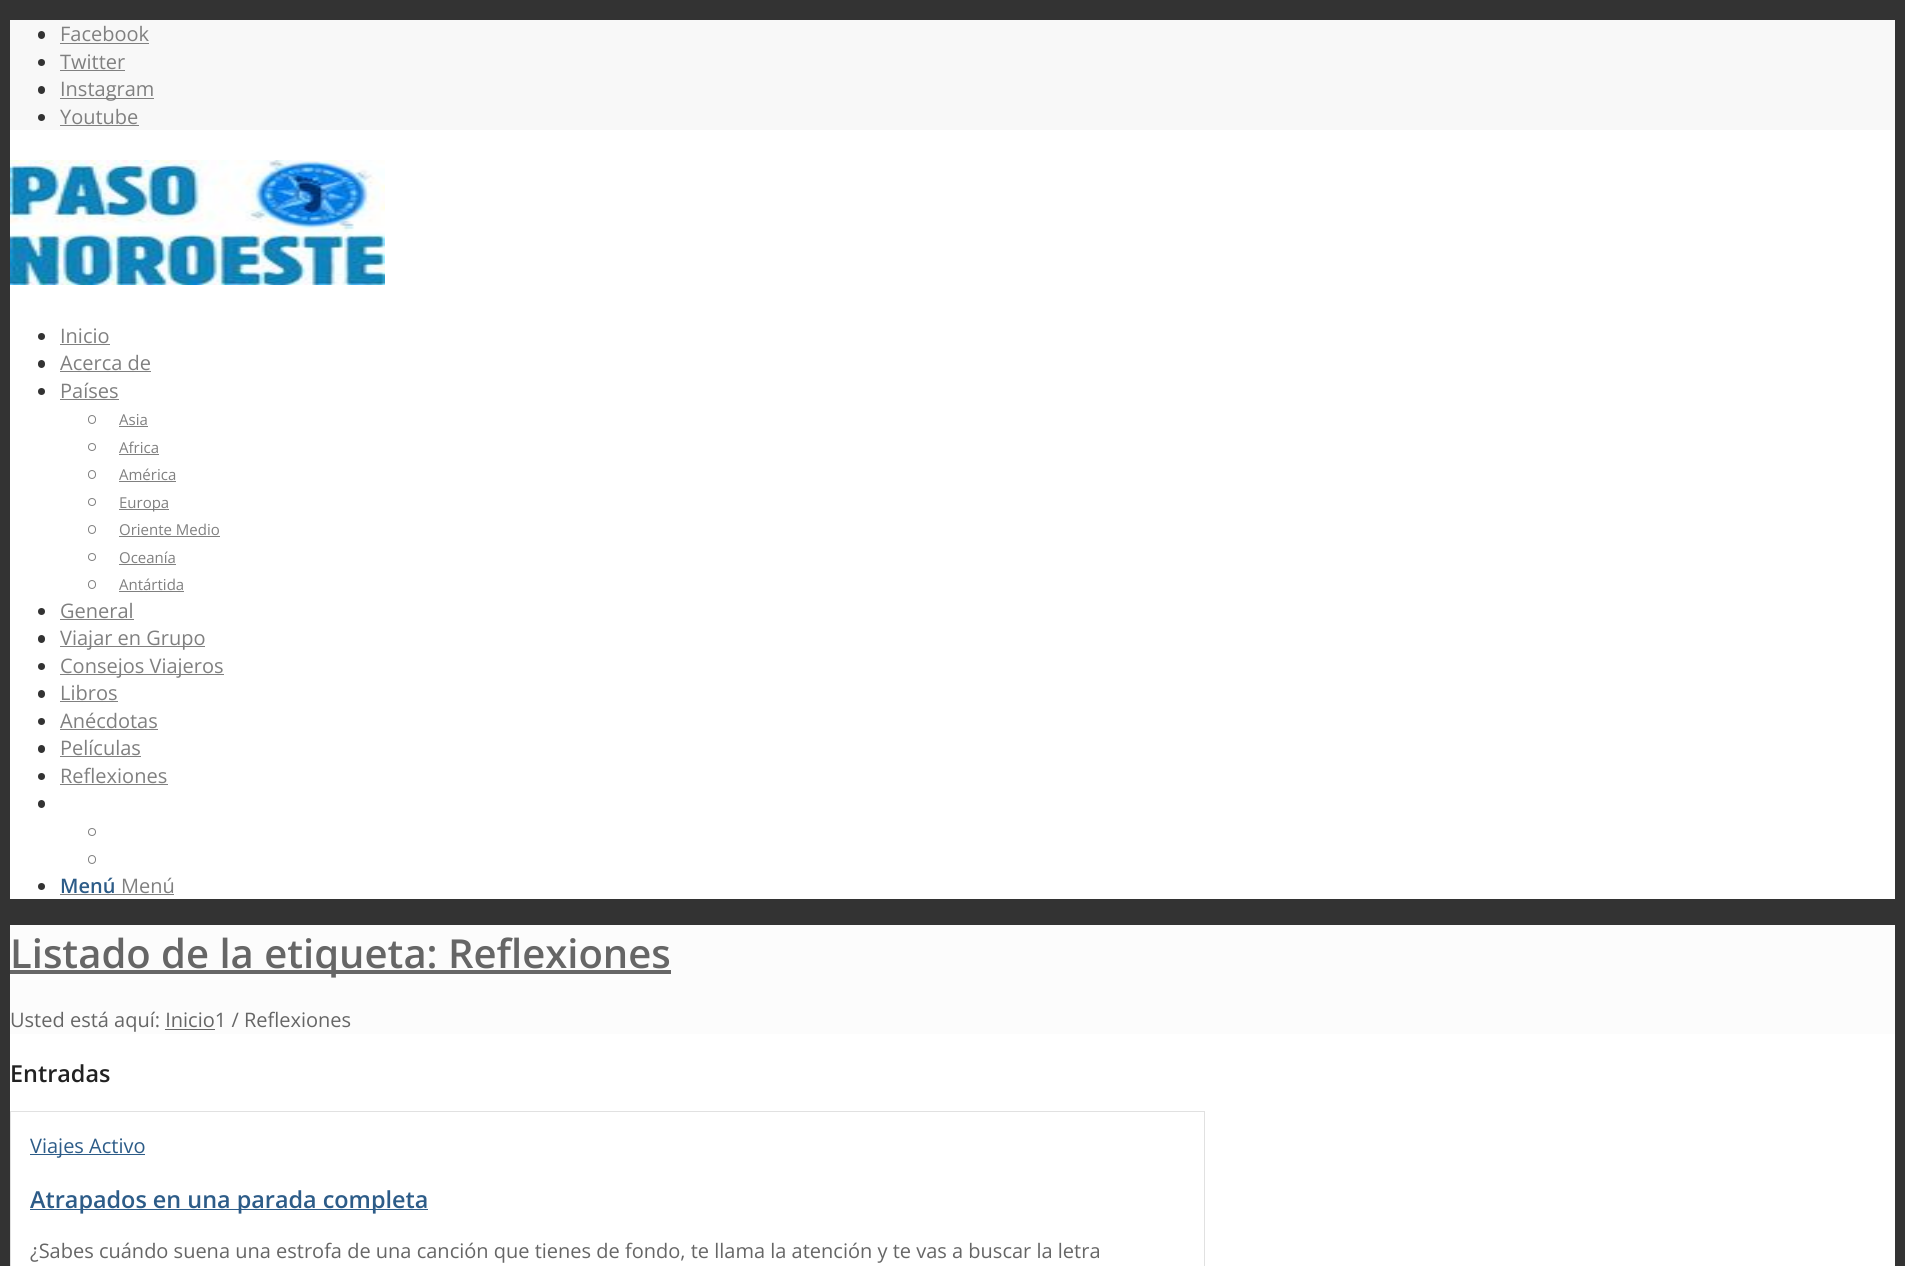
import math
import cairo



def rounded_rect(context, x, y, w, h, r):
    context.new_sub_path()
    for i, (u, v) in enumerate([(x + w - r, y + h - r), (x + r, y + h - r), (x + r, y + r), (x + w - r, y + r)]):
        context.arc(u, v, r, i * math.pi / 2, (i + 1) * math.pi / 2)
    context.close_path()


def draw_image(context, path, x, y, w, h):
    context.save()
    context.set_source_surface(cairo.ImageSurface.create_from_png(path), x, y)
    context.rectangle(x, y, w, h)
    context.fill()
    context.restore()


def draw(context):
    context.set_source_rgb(51 / 255, 51 / 255, 51 / 255)
    context.paint()
    context.set_source_rgb(1, 1, 1)
    context.rectangle(10, 130, 1885, 769)
    context.fill()
    context.set_source_rgb(248 / 255, 248 / 255, 248 / 255)
    context.rectangle(10, 20, 1885, 110)
    context.fill()
    context.set_source_rgb(51 / 255, 51 / 255, 51 / 255)
    rounded_rect(context, 38, 31, 7, 8, 3.5)
    context.fill()
    context.set_source_rgb(128 / 255, 128 / 255, 128 / 255)
    context.rectangle(60, 43, 89, 1)
    context.fill()
    context.set_source_rgb(51 / 255, 51 / 255, 51 / 255)
    context.arc(41.5, 62.5, 3.5, 0, 2 * math.pi)
    context.fill()
    context.set_source_rgb(128 / 255, 128 / 255, 128 / 255)
    context.rectangle(60, 70, 65, 1)
    context.fill()
    context.set_source_rgb(51 / 255, 51 / 255, 51 / 255)
    rounded_rect(context, 38, 86, 7, 8, 3.5)
    context.fill()
    context.set_source_rgb(128 / 255, 128 / 255, 128 / 255)
    context.rectangle(60, 98, 94, 1)
    context.fill()
    context.set_source_rgb(51 / 255, 51 / 255, 51 / 255)
    context.arc(41.5, 117.5, 3.5, 0, 2 * math.pi)
    context.fill()
    context.set_source_rgb(128 / 255, 128 / 255, 128 / 255)
    context.rectangle(60, 125, 79, 1)
    context.fill()
    draw_image(context, "images/1.png", 10, 160, 375, 125)
    context.set_source_rgb(51 / 255, 51 / 255, 51 / 255)
    context.arc(41.5, 336.5, 3.5, 0, 2 * math.pi)
    context.fill()
    context.set_source_rgb(128 / 255, 128 / 255, 128 / 255)
    context.rectangle(60, 344, 50, 1)
    context.fill()
    context.set_source_rgb(51 / 255, 51 / 255, 51 / 255)
    rounded_rect(context, 38, 360, 7, 8, 3.5)
    context.fill()
    context.set_source_rgb(128 / 255, 128 / 255, 128 / 255)
    context.rectangle(60, 371, 91, 1)
    context.fill()
    context.set_source_rgb(51 / 255, 51 / 255, 51 / 255)
    context.arc(41.5, 391.5, 3.5, 0, 2 * math.pi)
    context.fill()
    context.set_source_rgb(128 / 255, 128 / 255, 128 / 255)
    context.rectangle(60, 399, 59, 1)
    context.fill()
    rounded_rect(context, 88.5, 415.5, 7, 8, 3.5)
    context.set_line_width(1)
    context.stroke()
    context.rectangle(119, 426, 29, 1)
    context.fill()
    context.arc(92, 447, 3.5, 0, 2 * math.pi)
    context.stroke()
    context.rectangle(119, 454, 40, 1)
    context.fill()
    rounded_rect(context, 88.5, 470.5, 7, 8, 3.5)
    context.stroke()
    context.rectangle(119, 481, 57, 1)
    context.fill()
    context.arc(92, 502, 3.5, 0, 2 * math.pi)
    context.stroke()
    context.rectangle(119, 509, 50, 1)
    context.fill()
    rounded_rect(context, 88.5, 525.5, 7, 8, 3.5)
    context.stroke()
    context.rectangle(119, 536, 101, 1)
    context.fill()
    context.arc(92, 557, 3.5, 0, 2 * math.pi)
    context.stroke()
    context.rectangle(119, 564, 57, 1)
    context.fill()
    rounded_rect(context, 88.5, 580.5, 7, 8, 3.5)
    context.stroke()
    context.rectangle(119, 591, 65, 1)
    context.fill()
    context.set_source_rgb(51 / 255, 51 / 255, 51 / 255)
    context.arc(41.5, 611.5, 3.5, 0, 2 * math.pi)
    context.fill()
    context.set_source_rgb(128 / 255, 128 / 255, 128 / 255)
    context.rectangle(60, 619, 74, 1)
    context.fill()
    context.set_source_rgb(51 / 255, 51 / 255, 51 / 255)
    rounded_rect(context, 38, 635, 7, 8, 3.5)
    context.fill()
    context.set_source_rgb(128 / 255, 128 / 255, 128 / 255)
    context.rectangle(60, 646, 145, 1)
    context.fill()
    context.set_source_rgb(51 / 255, 51 / 255, 51 / 255)
    context.arc(41.5, 666.5, 3.5, 0, 2 * math.pi)
    context.fill()
    context.set_source_rgb(128 / 255, 128 / 255, 128 / 255)
    context.rectangle(60, 674, 164, 1)
    context.fill()
    context.set_source_rgb(51 / 255, 51 / 255, 51 / 255)
    rounded_rect(context, 38, 690, 7, 8, 3.5)
    context.fill()
    context.set_source_rgb(128 / 255, 128 / 255, 128 / 255)
    context.rectangle(60, 701, 58, 1)
    context.fill()
    context.set_source_rgb(51 / 255, 51 / 255, 51 / 255)
    context.arc(41.5, 721.5, 3.5, 0, 2 * math.pi)
    context.fill()
    context.set_source_rgb(128 / 255, 128 / 255, 128 / 255)
    context.rectangle(60, 729, 98, 1)
    context.fill()
    context.set_source_rgb(51 / 255, 51 / 255, 51 / 255)
    rounded_rect(context, 38, 745, 7, 8, 3.5)
    context.fill()
    context.set_source_rgb(128 / 255, 128 / 255, 128 / 255)
    context.rectangle(60, 756, 81, 1)
    context.fill()
    context.set_source_rgb(51 / 255, 51 / 255, 51 / 255)
    context.arc(41.5, 776.5, 3.5, 0, 2 * math.pi)
    context.fill()
    context.set_source_rgb(128 / 255, 128 / 255, 128 / 255)
    context.rectangle(60, 784, 108, 1)
    context.fill()
    context.set_source_rgb(51 / 255, 51 / 255, 51 / 255)
    rounded_rect(context, 38, 800, 7, 8, 3.5)
    context.fill()
    context.arc(92, 832, 3.5, 0, 2 * math.pi)
    context.set_source_rgb(128 / 255, 128 / 255, 128 / 255)
    context.stroke()
    rounded_rect(context, 88.5, 855.5, 7, 8, 3.5)
    context.stroke()
    context.set_source_rgb(51 / 255, 51 / 255, 51 / 255)
    context.arc(41.5, 886.5, 3.5, 0, 2 * math.pi)
    context.fill()
    context.set_source_rgb(128 / 255, 128 / 255, 128 / 255)
    context.rectangle(60, 894, 114, 1)
    context.fill()
    context.set_source_rgb(1, 1, 1)
    context.rectangle(10, 1034, 1885, 232)
    context.fill()
    context.set_source_rgb(252 / 255, 252 / 255, 252 / 255)
    context.rectangle(10, 925, 1885, 109)
    context.fill()
    context.set_source_rgb(102 / 255, 102 / 255, 102 / 255)
    context.rectangle(10, 970, 661, 4)
    context.fill()
    context.rectangle(165, 1029, 50, 1)
    context.fill()
    context.rectangle(10.5, 1111.5, 1194, 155)
    context.set_source_rgb(225 / 255, 225 / 255, 225 / 255)
    context.stroke()
    context.set_source_rgb(45 / 255, 92 / 255, 136 / 255)
    context.rectangle(30, 1154, 115, 1)
    context.fill()
    context.rectangle(30, 1209, 398, 1)
    context.fill()
    context.select_font_face("Open Sans")
    context.set_font_size(20)
    context.set_source_rgb(128 / 255, 128 / 255, 128 / 255)
    context.move_to(60, 41)
    context.show_text("Facebook")
    context.move_to(60, 69)
    context.show_text("Twitter")
    context.move_to(60, 96)
    context.show_text("Instagram")
    context.move_to(60, 124)
    context.show_text("Youtube")
    context.move_to(60, 343)
    context.show_text("Inicio")
    context.move_to(60, 370)
    context.show_text("Acerca de")
    context.move_to(60, 398)
    context.show_text("Países")
    context.set_font_size(15)
    context.move_to(119, 425)
    context.show_text("Asia")
    context.move_to(119, 453)
    context.show_text("Africa")
    context.move_to(119, 480)
    context.show_text("América")
    context.move_to(119, 508)
    context.show_text("Europa")
    context.move_to(119, 535)
    context.show_text("Oriente Medio")
    context.move_to(119, 563)
    context.show_text("Oceanía")
    context.move_to(119, 590)
    context.show_text("Antártida")
    context.set_font_size(20)
    context.move_to(60, 618)
    context.show_text("General")
    context.move_to(60, 645)
    context.show_text("Viajar en Grupo")
    context.move_to(60, 673)
    context.show_text("Consejos Viajeros")
    context.move_to(60, 700)
    context.show_text("Libros")
    context.move_to(60, 728)
    context.show_text("Anécdotas")
    context.move_to(60, 755)
    context.show_text("Películas")
    context.move_to(60, 783)
    context.show_text("Reflexiones")
    context.select_font_face("Open Sans SemiBold")
    context.set_source_rgb(45 / 255, 92 / 255, 136 / 255)
    context.move_to(60, 893)
    context.show_text("Menú")
    context.select_font_face("Open Sans")
    context.set_source_rgb(128 / 255, 128 / 255, 128 / 255)
    context.move_to(121, 893)
    context.show_text("Menú")
    context.select_font_face("Open Sans SemiBold")
    context.set_font_size(40)
    context.set_source_rgb(102 / 255, 102 / 255, 102 / 255)
    context.move_to(10, 968)
    context.show_text("Listado de la etiqueta: Reflexiones")
    context.select_font_face("Open Sans")
    context.set_font_size(20)
    context.move_to(10, 1027)
    context.show_text("Usted está aquí: Inicio1 / Reflexiones")
    context.select_font_face("Open Sans SemiBold")
    context.set_font_size(23.4)
    context.set_source_rgb(34 / 255, 34 / 255, 34 / 255)
    context.move_to(10, 1082)
    context.show_text("Entradas")
    context.select_font_face("Open Sans")
    context.set_font_size(20)
    context.set_source_rgb(45 / 255, 92 / 255, 136 / 255)
    context.move_to(30, 1153)
    context.show_text("Viajes Activo")
    context.select_font_face("Open Sans SemiBold")
    context.set_font_size(23.4)
    context.move_to(30, 1208)
    context.show_text("Atrapados en una parada completa")
    context.select_font_face("Open Sans")
    context.set_font_size(20)
    context.set_source_rgb(102 / 255, 102 / 255, 102 / 255)
    context.move_to(30, 1258)
    context.show_text("¿Sabes cuándo suena una estrofa de una canción que tienes de fondo, te llama la atención y te vas a buscar la letra")


surface = cairo.ImageSurface(cairo.Format.RGB24, 1905, 1266)
context = cairo.Context(surface)
options = cairo.FontOptions()
options.set_hint_metrics(cairo.HintMetrics.OFF)
options.set_hint_style(cairo.HintStyle.NONE)
context.set_font_options(options)
context.set_miter_limit(4)
draw(context)
surface.write_to_png("out.png")
